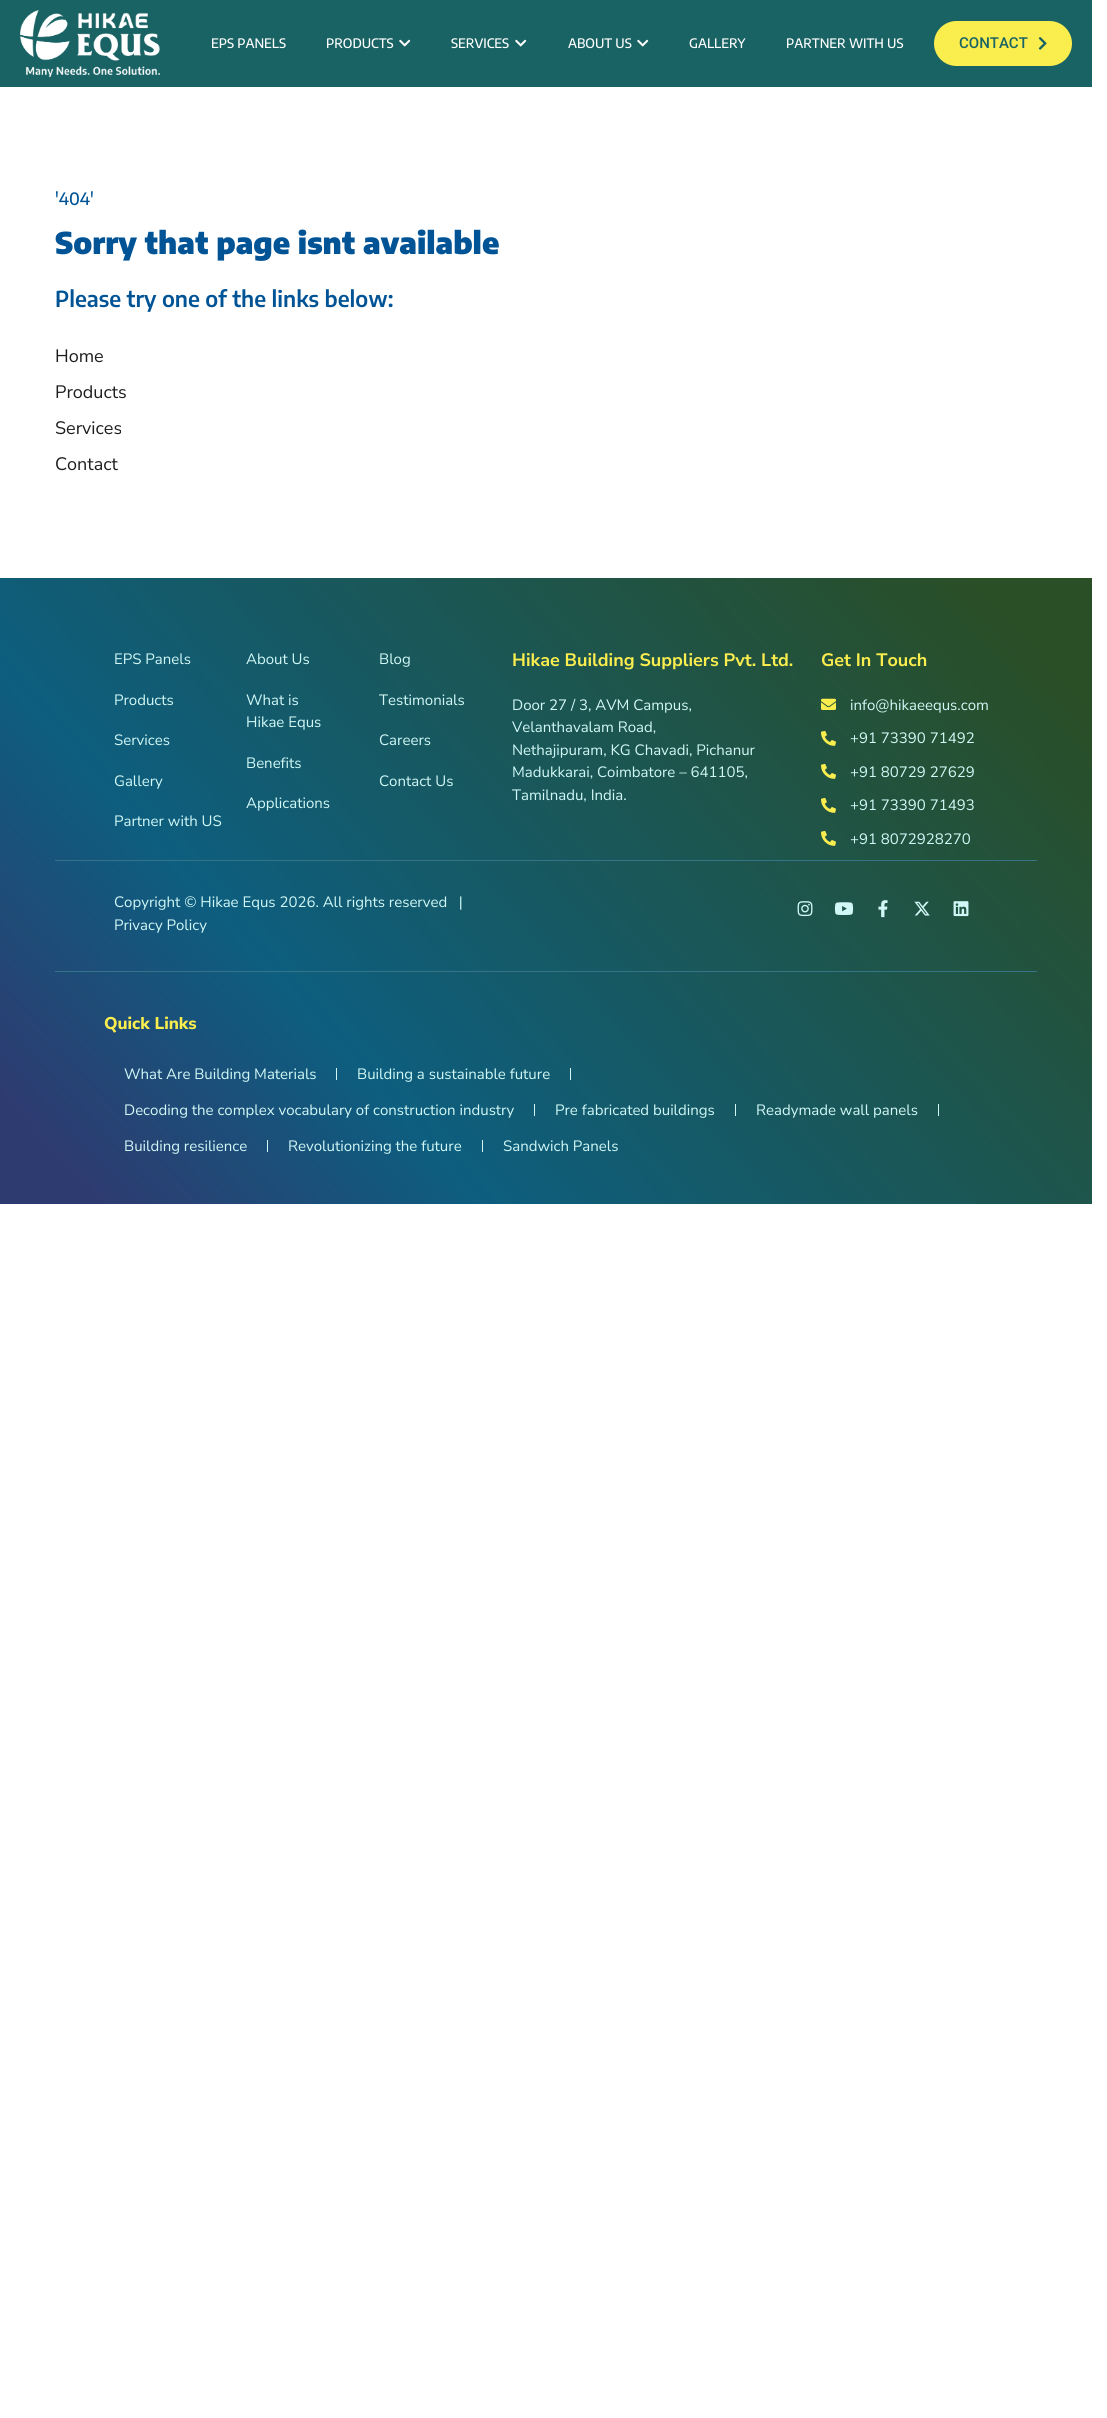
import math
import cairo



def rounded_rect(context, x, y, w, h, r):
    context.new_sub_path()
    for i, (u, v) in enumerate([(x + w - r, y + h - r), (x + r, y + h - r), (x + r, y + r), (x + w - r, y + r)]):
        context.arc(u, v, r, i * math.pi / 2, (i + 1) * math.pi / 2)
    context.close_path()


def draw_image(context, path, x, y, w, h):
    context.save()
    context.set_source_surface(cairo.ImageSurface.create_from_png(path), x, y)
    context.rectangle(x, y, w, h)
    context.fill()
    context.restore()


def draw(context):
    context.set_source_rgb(1, 1, 1)
    context.paint()
    context.set_source_rgb(26 / 255, 99 / 255, 101 / 255)
    context.rectangle(0, 0, 1092, 87)
    context.fill()
    draw_image(context, "images/1.png", 20, 10, 140, 67)
    draw_image(context, "images/2.png", 399, 39, 12, 8)
    draw_image(context, "images/2.png", 515, 39, 12, 8)
    draw_image(context, "images/2.png", 637, 39, 12, 8)
    context.set_source_rgb(250 / 255, 237 / 255, 78 / 255)
    rounded_rect(context, 934, 21, 138, 45, 22.5)
    context.fill()
    draw_image(context, "images/3.png", 1038, 37, 9, 13)
    gradient = cairo.LinearGradient(90, 1303, 1002, 479)
    gradient.add_color_stop_rgba(0.06, 46 / 255, 59 / 255, 113 / 255, 1)
    gradient.add_color_stop_rgba(0.29, 13 / 255, 94 / 255, 127 / 255, 1)
    gradient.add_color_stop_rgba(0.93, 42 / 255, 78 / 255, 38 / 255, 1)
    context.set_source(gradient)
    context.rectangle(0, 578, 1092, 626)
    context.fill()
    draw_image(context, "images/4.png", 821, 698, 15, 12)
    draw_image(context, "images/5.png", 821, 730, 15, 16)
    draw_image(context, "images/6.png", 821, 763, 15, 16)
    draw_image(context, "images/7.png", 821, 797, 15, 16)
    draw_image(context, "images/8.png", 821, 830, 15, 16)
    context.set_source_rgb(53 / 255, 115 / 255, 133 / 255)
    context.rectangle(55, 860, 982, 1)
    context.fill()
    context.rectangle(55, 971, 982, 1)
    context.fill()
    draw_image(context, "images/9.png", 797, 901, 16, 16)
    draw_image(context, "images/10.png", 834, 902, 20, 13)
    draw_image(context, "images/11.png", 878, 900, 10, 18)
    draw_image(context, "images/12.png", 914, 901, 16, 15)
    draw_image(context, "images/13.png", 953, 901, 16, 16)
    context.set_source_rgb(209 / 255, 248 / 255, 246 / 255)
    context.rectangle(336, 1068, 1, 12)
    context.fill()
    context.rectangle(570, 1068, 1, 12)
    context.fill()
    context.rectangle(534, 1104, 1, 12)
    context.fill()
    context.rectangle(735, 1104, 1, 12)
    context.fill()
    context.rectangle(938, 1104, 1, 12)
    context.fill()
    context.rectangle(267, 1140, 1, 12)
    context.fill()
    context.rectangle(482, 1140, 1, 12)
    context.fill()
    context.select_font_face("Encode Sans Condensed Medium")
    context.set_font_size(13)
    context.set_source_rgb(1, 1, 1)
    context.move_to(211, 48)
    context.show_text("EPS PANELS")
    context.move_to(326, 48)
    context.show_text("PRODUCTS")
    context.move_to(451, 48)
    context.show_text("SERVICES")
    context.move_to(568, 48)
    context.show_text("ABOUT US")
    context.move_to(689, 48)
    context.show_text("GALLERY")
    context.move_to(786, 48)
    context.show_text("PARTNER WITH US")
    context.select_font_face("Roboto Medium")
    context.set_font_size(15)
    context.set_source_rgb(26 / 255, 99 / 255, 101 / 255)
    context.move_to(959, 48)
    context.show_text("CONTACT")
    context.select_font_face("Encode Sans Condensed Medium")
    context.set_font_size(17)
    context.set_source_rgb(0, 84 / 255, 150 / 255)
    context.move_to(55, 205)
    context.show_text("'404'")
    context.select_font_face("Encode Sans Condensed Black")
    context.set_font_size(30)
    context.move_to(55, 254)
    context.show_text("Sorry that page isnt available")
    context.select_font_face("Encode Sans Condensed SemiBold")
    context.set_font_size(22)
    context.move_to(55, 307)
    context.show_text("Please try one of the links below:")
    context.select_font_face("Nunito Sans")
    context.set_font_size(18)
    context.set_source_rgb(29 / 255, 29 / 255, 31 / 255)
    context.move_to(55, 362)
    context.show_text("Home")
    context.move_to(55, 398)
    context.show_text("Products")
    context.move_to(55, 434)
    context.show_text("Services")
    context.move_to(55, 470)
    context.show_text("Contact")
    context.set_font_size(15)
    context.set_source_rgb(209 / 255, 248 / 255, 246 / 255)
    context.move_to(114, 664)
    context.show_text("EPS Panels")
    context.move_to(114, 705)
    context.show_text("Products")
    context.move_to(114, 745)
    context.show_text("Services")
    context.move_to(114, 786)
    context.show_text("Gallery")
    context.move_to(114, 826)
    context.show_text("Partner with US")
    context.move_to(246, 664)
    context.show_text("About Us")
    context.move_to(246, 705)
    context.show_text("What is")
    context.move_to(246, 727)
    context.show_text("Hikae Equs")
    context.move_to(246, 768)
    context.show_text("Benefits")
    context.move_to(246, 808)
    context.show_text("Applications")
    context.move_to(379, 664)
    context.show_text("Blog")
    context.move_to(379, 705)
    context.show_text("Testimonials")
    context.move_to(379, 745)
    context.show_text("Careers")
    context.move_to(379, 786)
    context.show_text("Contact Us")
    context.select_font_face("Nunito Sans", cairo.FontSlant.NORMAL, cairo.FontWeight.BOLD)
    context.set_font_size(18)
    context.set_source_rgb(250 / 255, 237 / 255, 78 / 255)
    context.move_to(512, 666)
    context.show_text("Hikae Building Suppliers Pvt. Ltd.")
    context.select_font_face("Nunito Sans")
    context.set_font_size(15)
    context.set_source_rgb(209 / 255, 248 / 255, 246 / 255)
    context.move_to(512, 710)
    context.show_text("Door 27 / 3, AVM Campus,")
    context.move_to(512, 732)
    context.show_text("Velanthavalam Road,")
    context.move_to(512, 755)
    context.show_text("Nethajipuram, KG Chavadi, Pichanur")
    context.move_to(512, 777)
    context.show_text("Madukkarai, Coimbatore – 641105,")
    context.move_to(512, 800)
    context.show_text("Tamilnadu, India.")
    context.select_font_face("Nunito Sans", cairo.FontSlant.NORMAL, cairo.FontWeight.BOLD)
    context.set_font_size(18)
    context.set_source_rgb(250 / 255, 237 / 255, 78 / 255)
    context.move_to(821, 666)
    context.show_text("Get In Touch")
    context.select_font_face("Nunito Sans")
    context.set_font_size(15)
    context.set_source_rgb(209 / 255, 248 / 255, 246 / 255)
    context.move_to(850, 710)
    context.show_text("info@hikaeequs.com")
    context.move_to(850, 743)
    context.show_text("+91 73390 71492")
    context.move_to(850, 777)
    context.show_text("+91 80729 27629")
    context.move_to(850, 810)
    context.show_text("+91 73390 71493")
    context.move_to(850, 844)
    context.show_text("+91 8072928270")
    context.move_to(114, 907)
    context.show_text("Copyright © Hikae Equs 2026. All rights reserved   |")
    context.move_to(114, 930)
    context.show_text("Privacy Policy")
    context.select_font_face("Nunito Sans ExtraBold")
    context.set_font_size(17)
    context.set_source_rgb(250 / 255, 237 / 255, 78 / 255)
    context.move_to(104, 1029)
    context.show_text("Quick Links")
    context.select_font_face("Nunito Sans")
    context.set_font_size(15)
    context.set_source_rgb(209 / 255, 248 / 255, 246 / 255)
    context.move_to(124, 1079)
    context.show_text("What Are Building Materials")
    context.move_to(357, 1079)
    context.show_text("Building a sustainable future")
    context.move_to(124, 1115)
    context.show_text("Decoding the complex vocabulary of construction industry")
    context.move_to(555, 1115)
    context.show_text("Pre fabricated buildings")
    context.move_to(756, 1115)
    context.show_text("Readymade wall panels")
    context.move_to(124, 1151)
    context.show_text("Building resilience")
    context.move_to(288, 1151)
    context.show_text("Revolutionizing the future")
    context.move_to(503, 1151)
    context.show_text("Sandwich Panels")


surface = cairo.ImageSurface(cairo.Format.RGB24, 1107, 2418)
context = cairo.Context(surface)
options = cairo.FontOptions()
options.set_hint_metrics(cairo.HintMetrics.OFF)
options.set_hint_style(cairo.HintStyle.NONE)
context.set_font_options(options)
context.set_miter_limit(4)
draw(context)
surface.write_to_png("out.png")
